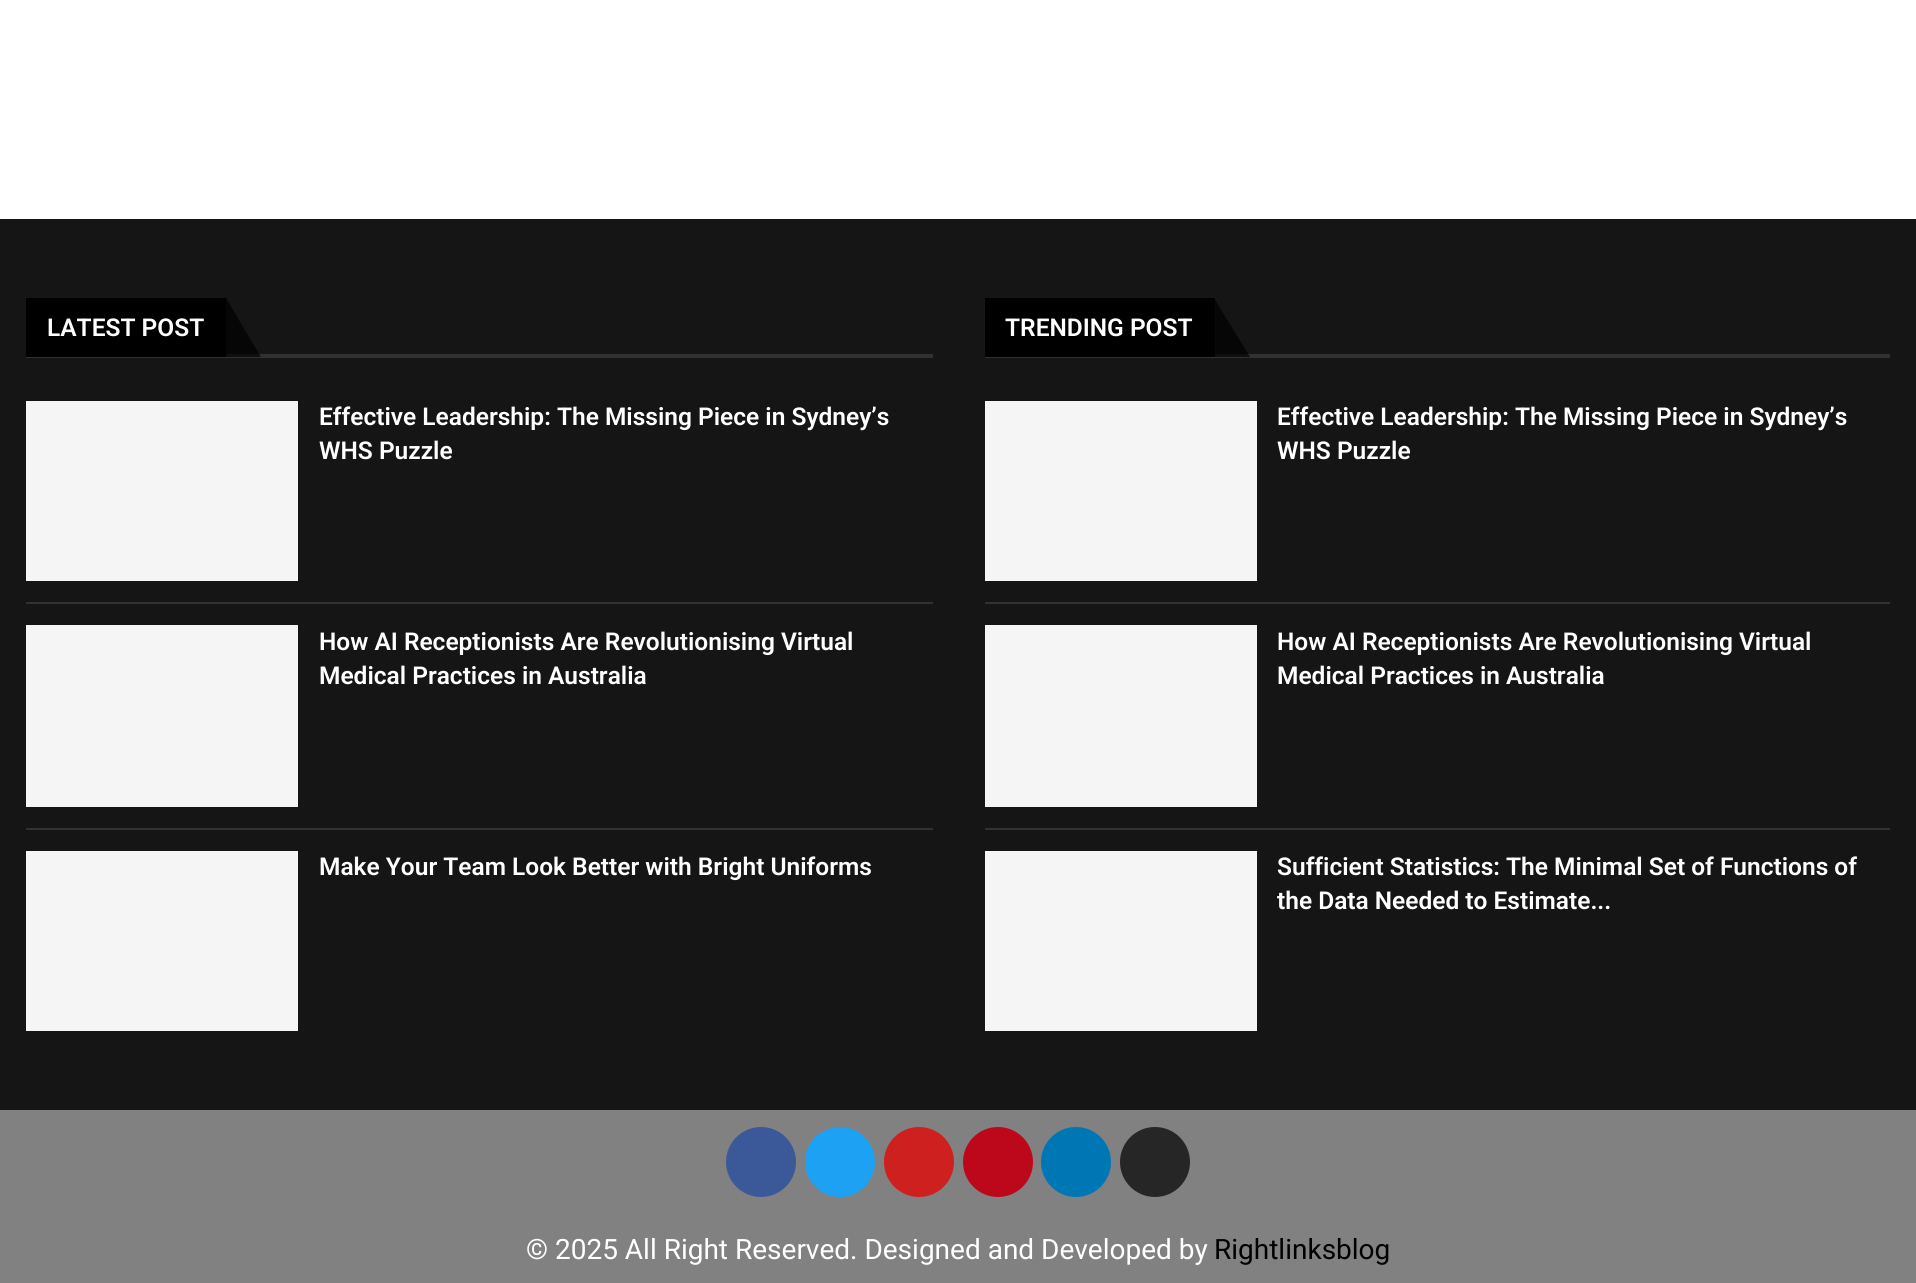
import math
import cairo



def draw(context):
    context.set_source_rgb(1, 1, 1)
    context.paint()
    context.set_source_rgb(21 / 255, 21 / 255, 21 / 255)
    context.rectangle(0, 219, 1916, 891)
    context.fill()
    context.set_source_rgb(49 / 255, 49 / 255, 49 / 255)
    context.rectangle(26, 354, 907, 4)
    context.fill()
    context.set_source_rgb(0, 0, 0)
    context.rectangle(26, 298, 200, 59)
    context.fill()
    context.set_source_rgba(0, 0, 0, 0.7)
    context.new_path()
    context.move_to(261, 357)
    context.line_to(226, 357)
    context.line_to(226, 298)
    context.close_path()
    context.fill()
    context.set_source_rgb(49 / 255, 49 / 255, 49 / 255)
    context.rectangle(26, 602, 907, 2)
    context.fill()
    context.set_source_rgb(245 / 255, 245 / 255, 245 / 255)
    context.rectangle(26, 401, 272, 180)
    context.fill()
    context.set_source_rgb(49 / 255, 49 / 255, 49 / 255)
    context.rectangle(26, 828, 907, 2)
    context.fill()
    context.set_source_rgb(245 / 255, 245 / 255, 245 / 255)
    context.rectangle(26, 625, 272, 182)
    context.fill()
    context.rectangle(26, 851, 272, 180)
    context.fill()
    context.set_source_rgb(49 / 255, 49 / 255, 49 / 255)
    context.rectangle(985, 354, 905, 4)
    context.fill()
    context.set_source_rgb(0, 0, 0)
    context.rectangle(985, 298, 230, 59)
    context.fill()
    context.set_source_rgba(0, 0, 0, 0.7)
    context.new_path()
    context.move_to(1250, 357)
    context.line_to(1214, 357)
    context.line_to(1214, 298)
    context.close_path()
    context.fill()
    context.set_source_rgb(49 / 255, 49 / 255, 49 / 255)
    context.rectangle(985, 602, 905, 2)
    context.fill()
    context.set_source_rgb(245 / 255, 245 / 255, 245 / 255)
    context.rectangle(985, 401, 272, 180)
    context.fill()
    context.set_source_rgb(49 / 255, 49 / 255, 49 / 255)
    context.rectangle(985, 828, 905, 2)
    context.fill()
    context.set_source_rgb(245 / 255, 245 / 255, 245 / 255)
    context.rectangle(985, 625, 272, 182)
    context.fill()
    context.rectangle(985, 851, 272, 180)
    context.fill()
    context.set_source_rgb(129 / 255, 129 / 255, 129 / 255)
    context.rectangle(0, 1110, 1916, 173)
    context.fill()
    context.set_source_rgb(59 / 255, 89 / 255, 152 / 255)
    context.arc(761, 1162, 35, 0, 2 * math.pi)
    context.fill()
    context.set_source_rgb(29 / 255, 161 / 255, 242 / 255)
    context.arc(840, 1162, 35, 0, 2 * math.pi)
    context.fill()
    context.set_source_rgb(205 / 255, 32 / 255, 31 / 255)
    context.arc(919, 1162, 35, 0, 2 * math.pi)
    context.fill()
    context.set_source_rgb(189 / 255, 8 / 255, 28 / 255)
    context.arc(998, 1162, 35, 0, 2 * math.pi)
    context.fill()
    context.set_source_rgb(0, 119 / 255, 181 / 255)
    context.arc(1076, 1162, 35, 0, 2 * math.pi)
    context.fill()
    context.set_source_rgb(38 / 255, 38 / 255, 38 / 255)
    context.arc(1155, 1162, 35, 0, 2 * math.pi)
    context.fill()
    context.select_font_face("Roboto SemiBold")
    context.set_font_size(24.5)
    context.set_source_rgb(1, 1, 1)
    context.move_to(47, 336)
    context.show_text("LATEST POST")
    context.move_to(319, 425)
    context.show_text("Effective Leadership: The Missing Piece in Sydney’s")
    context.move_to(319, 459)
    context.show_text("WHS Puzzle")
    context.move_to(319, 650)
    context.show_text("How AI Receptionists Are Revolutionising Virtual")
    context.move_to(319, 684)
    context.show_text("Medical Practices in Australia")
    context.move_to(319, 875)
    context.show_text("Make Your Team Look Better with Bright Uniforms")
    context.move_to(1005, 336)
    context.show_text("TRENDING POST")
    context.move_to(1277, 425)
    context.show_text("Effective Leadership: The Missing Piece in Sydney’s")
    context.move_to(1277, 459)
    context.show_text("WHS Puzzle")
    context.move_to(1277, 650)
    context.show_text("How AI Receptionists Are Revolutionising Virtual")
    context.move_to(1277, 684)
    context.show_text("Medical Practices in Australia")
    context.move_to(1277, 875)
    context.show_text("Sufficient Statistics: The Minimal Set of Functions of")
    context.move_to(1277, 909)
    context.show_text("the Data Needed to Estimate...")
    context.select_font_face("Roboto")
    context.set_font_size(28)
    context.move_to(526, 1259)
    context.show_text("© 2025 All Right Reserved. Designed and Developed by")
    context.set_source_rgb(0, 0, 0)
    context.move_to(1214, 1259)
    context.show_text("Rightlinksblog")


surface = cairo.ImageSurface(cairo.Format.RGB24, 1916, 1283)
context = cairo.Context(surface)
options = cairo.FontOptions()
options.set_hint_metrics(cairo.HintMetrics.OFF)
options.set_hint_style(cairo.HintStyle.NONE)
context.set_font_options(options)
context.set_miter_limit(4)
draw(context)
surface.write_to_png("out.png")
